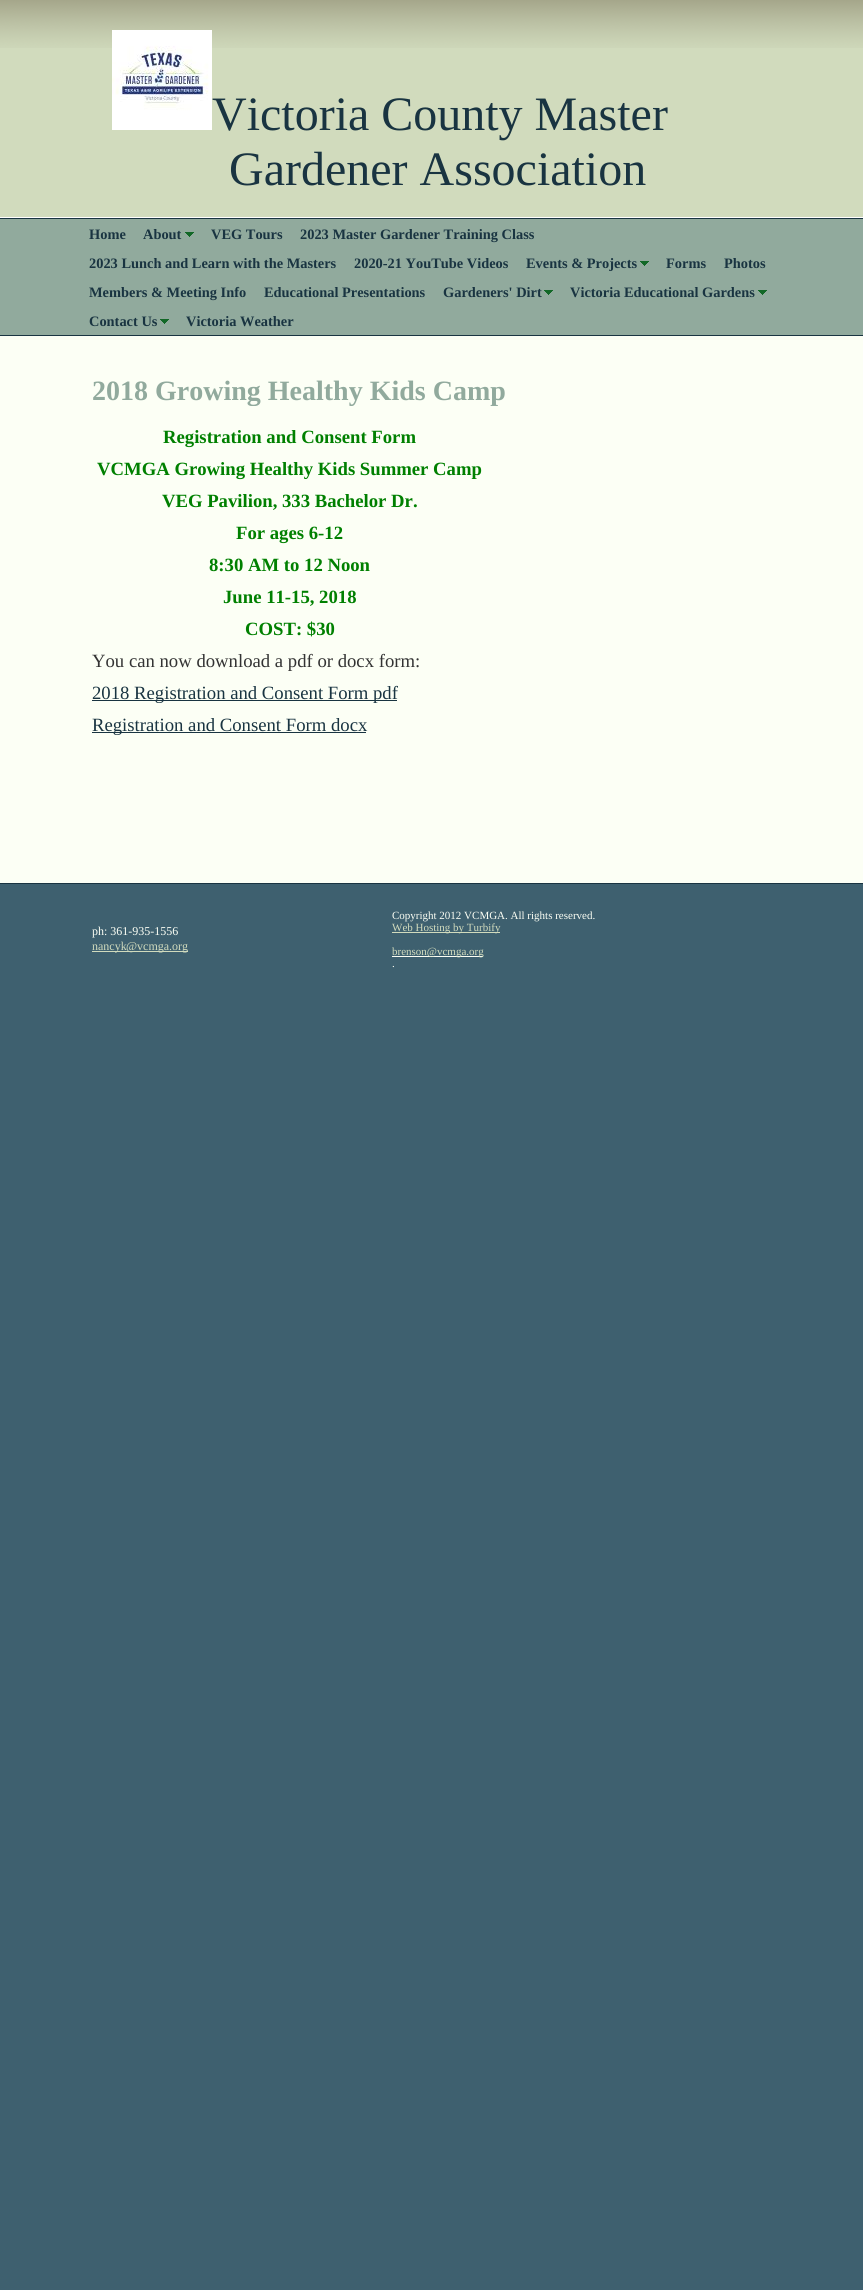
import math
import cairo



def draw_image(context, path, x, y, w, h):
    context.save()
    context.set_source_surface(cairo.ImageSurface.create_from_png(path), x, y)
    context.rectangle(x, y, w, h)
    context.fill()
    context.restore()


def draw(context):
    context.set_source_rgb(62 / 255, 96 / 255, 111 / 255)
    context.paint()
    context.set_source_rgb(252 / 255, 1, 245 / 255)
    context.rectangle(0, 336, 863, 547)
    context.fill()
    context.set_source_rgb(209 / 255, 219 / 255, 189 / 255)
    context.rectangle(0, 48, 863, 169)
    context.fill()
    draw_image(context, "images/1.png", 0, 0, 863, 48)
    context.set_source_rgb(1, 1, 1)
    context.rectangle(0, 217, 863, 1)
    context.fill()
    draw_image(context, "images/2.png", 112, 30, 100, 100)
    context.set_source_rgb(145 / 255, 170 / 255, 157 / 255)
    context.rectangle(0, 219, 863, 116)
    context.fill()
    context.set_source_rgb(25 / 255, 52 / 255, 65 / 255)
    context.rectangle(0, 218, 863, 1)
    context.fill()
    context.rectangle(0, 335, 863, 1)
    context.fill()
    draw_image(context, "images/3.png", 185, 232, 9, 5)
    draw_image(context, "images/3.png", 640, 261, 9, 5)
    draw_image(context, "images/3.png", 544, 290, 9, 5)
    draw_image(context, "images/3.png", 758, 290, 9, 5)
    draw_image(context, "images/3.png", 160, 319, 9, 5)
    context.rectangle(92, 700, 305, 1)
    context.fill()
    context.rectangle(92, 732, 274, 1)
    context.fill()
    context.rectangle(0, 883, 863, 1)
    context.fill()
    context.set_source_rgb(209 / 255, 219 / 255, 189 / 255)
    context.rectangle(92, 951, 34, 1)
    context.fill()
    context.rectangle(126, 951, 43, 1)
    context.fill()
    context.rectangle(169, 951, 19, 1)
    context.fill()
    context.rectangle(392, 932, 108, 1)
    context.fill()
    context.set_source_rgb(252 / 255, 1, 245 / 255)
    context.rectangle(392, 956, 91, 1)
    context.fill()
    context.select_font_face("Liberation Serif")
    context.set_font_size(48)
    context.set_source_rgb(25 / 255, 52 / 255, 65 / 255)
    context.move_to(212, 130)
    context.show_text("Victoria County Master")
    context.move_to(229, 185)
    context.show_text("Gardener Association")
    context.select_font_face("Liberation Serif", cairo.FontSlant.NORMAL, cairo.FontWeight.BOLD)
    context.set_font_size(14.4)
    context.move_to(89, 239)
    context.show_text("Home")
    context.move_to(143, 239)
    context.show_text("About")
    context.move_to(211, 239)
    context.show_text("VEG Tours")
    context.move_to(300, 239)
    context.show_text("2023 Master Gardener Training Class")
    context.move_to(89, 268)
    context.show_text("2023 Lunch and Learn with the Masters")
    context.move_to(354, 268)
    context.show_text("2020-21 YouTube Videos")
    context.move_to(526, 268)
    context.show_text("Events & Projects")
    context.move_to(666, 268)
    context.show_text("Forms")
    context.move_to(724, 268)
    context.show_text("Photos")
    context.move_to(89, 297)
    context.show_text("Members & Meeting Info")
    context.move_to(264, 297)
    context.show_text("Educational Presentations")
    context.move_to(443, 297)
    context.show_text("Gardeners' Dirt")
    context.move_to(570, 297)
    context.show_text("Victoria Educational Gardens")
    context.move_to(89, 326)
    context.show_text("Contact Us")
    context.move_to(186, 326)
    context.show_text("Victoria Weather")
    context.save()
    context.rectangle(92, 376, 673, 30)
    context.clip()
    context.set_font_size(28)
    context.set_source_rgb(145 / 255, 170 / 255, 157 / 255)
    context.move_to(92, 400)
    context.show_text("2018 Growing Healthy Kids Camp")
    context.restore()
    context.set_font_size(18.7)
    context.set_source_rgb(0, 128 / 255, 0)
    context.move_to(163, 443)
    context.show_text("Registration and Consent Form")
    context.move_to(97, 475)
    context.show_text("VCMGA Growing Healthy Kids Summer Camp")
    context.move_to(162, 507)
    context.show_text("VEG Pavilion, 333 Bachelor Dr.")
    context.move_to(236, 539)
    context.show_text("For ages 6-12")
    context.move_to(209, 571)
    context.show_text("8:30 AM to 12 Noon")
    context.move_to(223, 603)
    context.show_text("June 11-15, 2018")
    context.move_to(245, 635)
    context.show_text("COST: $30")
    context.select_font_face("Liberation Serif")
    context.set_source_rgb(51 / 255, 51 / 255, 51 / 255)
    context.move_to(92, 667)
    context.show_text("You can now download a pdf or docx form:")
    context.set_source_rgb(25 / 255, 52 / 255, 65 / 255)
    context.move_to(92, 699)
    context.show_text("2018 Registration and Consent Form pdf")
    context.move_to(92, 731)
    context.show_text("Registration and Consent Form docx")
    context.set_font_size(12)
    context.set_source_rgb(252 / 255, 1, 245 / 255)
    context.move_to(92, 935)
    context.show_text("ph: 361-935-1556")
    context.set_source_rgb(209 / 255, 219 / 255, 189 / 255)
    context.move_to(92, 950)
    context.show_text("nancyk")
    context.move_to(126, 950)
    context.show_text("@vcmga")
    context.move_to(169, 950)
    context.show_text(".org")
    context.set_font_size(11)
    context.set_source_rgb(252 / 255, 1, 245 / 255)
    context.move_to(392, 919)
    context.show_text("Copyright 2012 VCMGA. All rights reserved.")
    context.set_source_rgb(209 / 255, 219 / 255, 189 / 255)
    context.move_to(392, 931)
    context.show_text("Web Hosting by Turbify")
    context.move_to(392, 955)
    context.show_text("brenson@vcmga.org")
    context.set_source_rgb(252 / 255, 1, 245 / 255)
    context.move_to(392, 967)
    context.show_text(".")


surface = cairo.ImageSurface(cairo.Format.RGB24, 863, 2290)
context = cairo.Context(surface)
options = cairo.FontOptions()
options.set_hint_metrics(cairo.HintMetrics.OFF)
options.set_hint_style(cairo.HintStyle.NONE)
context.set_font_options(options)
context.set_miter_limit(4)
draw(context)
surface.write_to_png("out.png")
